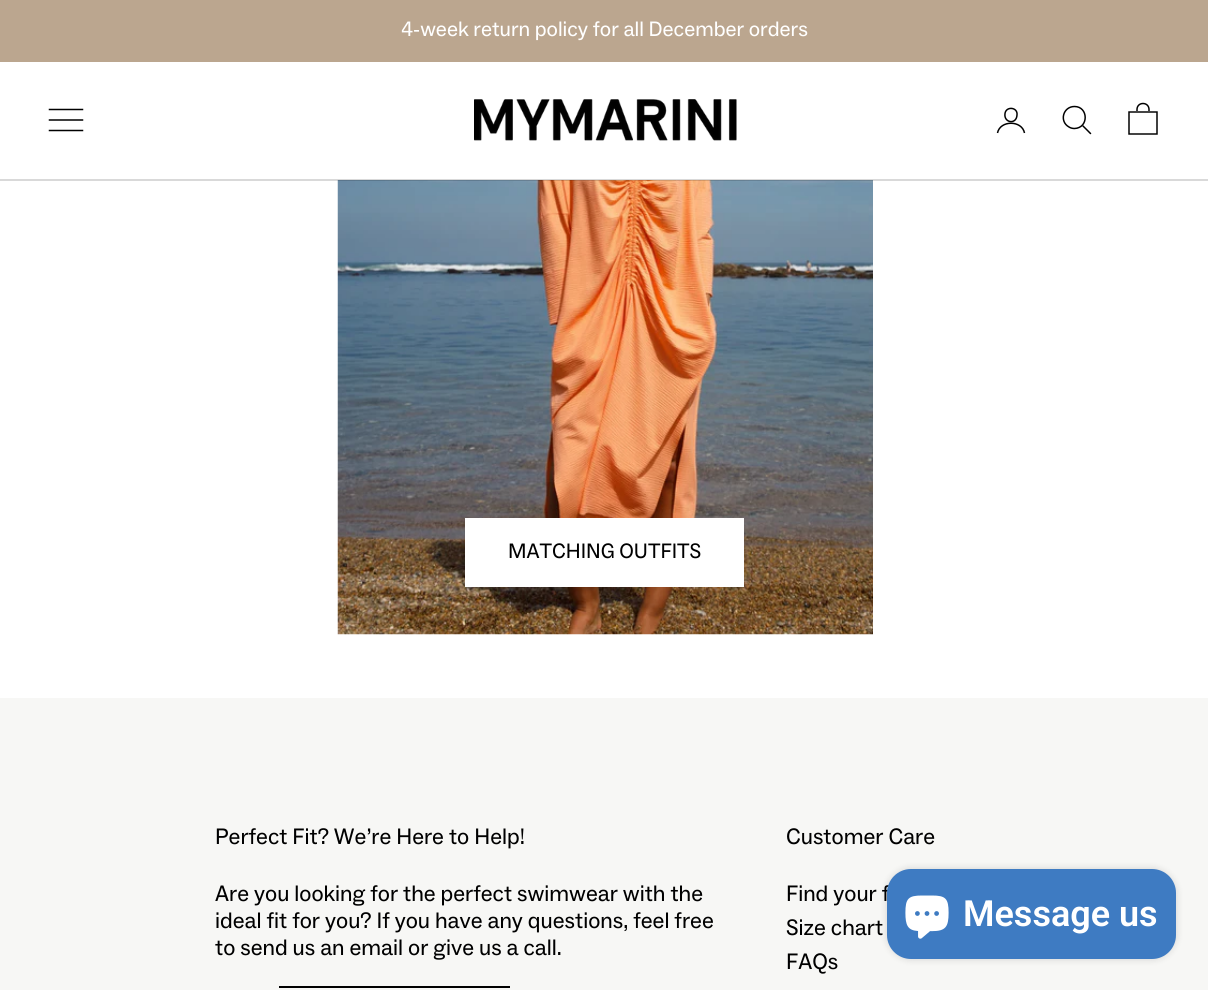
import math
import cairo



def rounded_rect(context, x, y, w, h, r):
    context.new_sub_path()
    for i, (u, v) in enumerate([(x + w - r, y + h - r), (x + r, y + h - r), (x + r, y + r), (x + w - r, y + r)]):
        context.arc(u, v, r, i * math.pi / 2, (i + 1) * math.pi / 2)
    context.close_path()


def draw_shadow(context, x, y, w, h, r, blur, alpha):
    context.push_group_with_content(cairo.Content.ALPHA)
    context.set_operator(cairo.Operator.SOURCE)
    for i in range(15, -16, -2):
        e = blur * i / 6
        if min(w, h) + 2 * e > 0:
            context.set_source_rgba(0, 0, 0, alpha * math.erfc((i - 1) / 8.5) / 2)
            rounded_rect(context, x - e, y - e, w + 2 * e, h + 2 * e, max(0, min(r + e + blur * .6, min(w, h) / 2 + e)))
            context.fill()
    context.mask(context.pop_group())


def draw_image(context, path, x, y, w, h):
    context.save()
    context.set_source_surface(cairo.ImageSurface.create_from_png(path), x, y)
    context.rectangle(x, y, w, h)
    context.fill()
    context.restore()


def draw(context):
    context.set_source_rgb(1, 1, 1)
    context.paint()
    context.set_source_rgb(187 / 255, 166 / 255, 143 / 255)
    context.rectangle(0, 0, 1208, 62)
    context.fill()
    draw_image(context, "images/2.png", 337, 180, 536, 455)
    context.set_source_rgba(0, 0, 0, 0.15)
    context.rectangle(0, 179, 1208, 2)
    context.fill()
    context.new_path()
    context.move_to(49.5, 130.5)
    context.line_to(82.5, 130.5)
    context.move_to(49.5, 120)
    context.line_to(82.5, 120)
    context.move_to(49.5, 109.5)
    context.line_to(82.5, 109.5)
    context.set_source_rgb(0, 0, 0)
    context.set_line_width(1.5)
    context.set_line_cap(cairo.LineCap.SQUARE)
    context.stroke()
    draw_image(context, "images/1.png", 474, 99, 263, 42)
    context.new_path()
    context.move_to(1017, 115)
    context.curve_to(1016.5, 125, 1003.5, 123, 1005, 113.5)
    context.curve_to(1006, 106, 1018, 107, 1017, 115)
    context.close_path()
    context.set_line_cap(cairo.LineCap.ROUND)
    context.set_line_join(cairo.LineJoin.ROUND)
    context.stroke()
    context.new_path()
    context.move_to(997.5, 133)
    context.curve_to(1000, 120, 1022, 120, 1024.5, 133)
    context.set_line_cap(cairo.LineCap.BUTT)
    context.set_line_join(cairo.LineJoin.MITER)
    context.stroke()
    context.new_path()
    context.move_to(1074.5, 106.5)
    context.curve_to(1063, 106.5, 1059, 121.5, 1069, 127)
    context.curve_to(1070.5, 128, 1072.5, 128.5, 1074.5, 128.5)
    context.curve_to(1089, 128, 1088.5, 106.5, 1074.5, 106.5)
    context.close_path()
    context.stroke()
    context.new_path()
    context.move_to(1083, 126)
    context.line_to(1090.5, 133.5)
    context.set_line_cap(cairo.LineCap.ROUND)
    context.stroke()
    context.new_path()
    context.move_to(1157, 134)
    context.line_to(1157, 112)
    context.line_to(1129, 112)
    context.line_to(1129, 134)
    context.close_path()
    context.move_to(1137, 111)
    context.line_to(1137, 109.5)
    context.curve_to(1137, 106, 1139.5, 103.5, 1143, 103.5)
    context.curve_to(1146.5, 103.5, 1149, 106, 1149, 109.5)
    context.line_to(1149, 111)
    context.set_line_cap(cairo.LineCap.BUTT)
    context.stroke()
    context.set_source_rgb(1, 1, 1)
    context.rectangle(466, 519, 277, 67)
    context.fill_preserve()
    context.set_line_width(2)
    context.stroke()
    context.set_source_rgb(247 / 255, 247 / 255, 245 / 255)
    context.rectangle(0, 698, 1208, 292)
    context.fill()
    context.set_source_rgb(0, 0, 0)
    context.rectangle(279, 986, 231, 2)
    context.fill()
    context.set_source_rgb(0, 0, 0)
    draw_shadow(context, 887, 869, 289, 90, 24, 4, 0.15)
    context.select_font_face("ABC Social")
    context.set_font_size(21)
    context.set_source_rgb(1, 1, 1)
    context.move_to(401, 36)
    context.show_text("4-week return policy for all December orders")
    context.set_source_rgb(0, 0, 0)
    context.move_to(508, 558)
    context.show_text("MATCHING OUTFITS")
    context.set_font_size(22.5)
    context.move_to(215, 844)
    context.show_text("Perfect Fit? We’re Here to Help!")
    context.move_to(215, 901)
    context.show_text("Are you looking for the perfect swimwear with the")
    context.move_to(215, 928)
    context.show_text("ideal fit for you? If you have any questions, feel free")
    context.move_to(215, 955)
    context.show_text("to send us an email or give us a call.")
    context.move_to(786, 844)
    context.show_text("Customer Care")
    context.move_to(786, 901)
    context.show_text("Find your f")
    context.move_to(786, 935)
    context.show_text("Size chart")
    context.move_to(786, 969)
    context.show_text("FAQs")
    context.set_source_rgb(62 / 255, 123 / 255, 194 / 255)
    rounded_rect(context, 887, 869, 289, 90, 24)
    context.fill()
    draw_image(context, "images/3.png", 905, 895, 44, 44)
    context.select_font_face("Roboto SemiBold")
    context.set_font_size(36)
    context.set_source_rgb(1, 1, 1)
    context.move_to(963, 926)
    context.show_text("Message us")


surface = cairo.ImageSurface(cairo.Format.RGB24, 1208, 990)
context = cairo.Context(surface)
options = cairo.FontOptions()
options.set_hint_metrics(cairo.HintMetrics.OFF)
options.set_hint_style(cairo.HintStyle.NONE)
context.set_font_options(options)
context.set_miter_limit(4)
draw(context)
surface.write_to_png("out.png")
